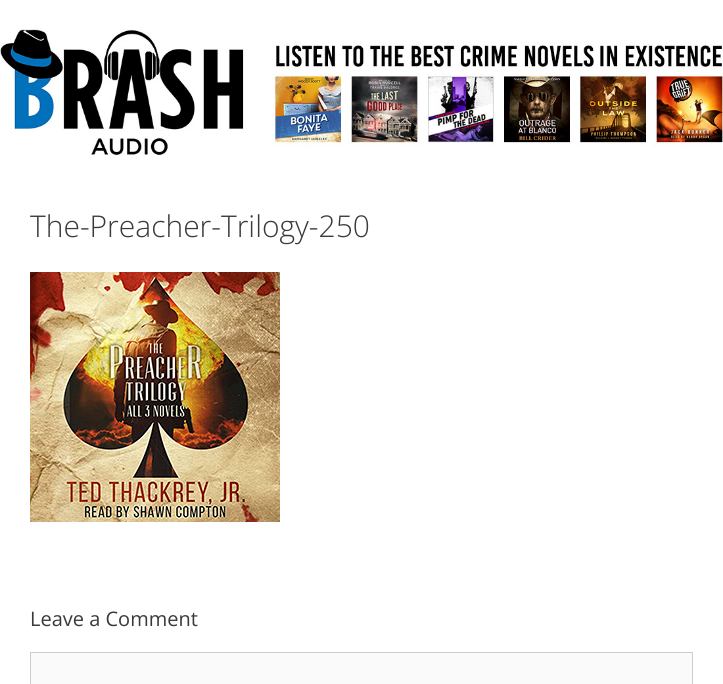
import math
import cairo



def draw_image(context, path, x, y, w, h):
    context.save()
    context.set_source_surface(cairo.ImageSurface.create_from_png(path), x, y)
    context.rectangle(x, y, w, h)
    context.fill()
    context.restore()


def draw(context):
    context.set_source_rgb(1, 1, 1)
    context.paint()
    draw_image(context, "images/1.png", 0, 29, 723, 126)
    draw_image(context, "images/2.png", 30, 272, 250, 250)
    context.set_source_rgb(250 / 255, 250 / 255, 250 / 255)
    context.rectangle(30.5, 652.5, 662, 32)
    context.fill_preserve()
    context.set_source_rgb(204 / 255, 204 / 255, 204 / 255)
    context.set_line_width(1)
    context.stroke()
    context.select_font_face("Open Sans Light")
    context.set_font_size(30)
    context.set_source_rgb(58 / 255, 58 / 255, 58 / 255)
    context.move_to(30, 237)
    context.show_text("The-Preacher-Trilogy-250")
    context.select_font_face("Open Sans")
    context.set_font_size(20)
    context.move_to(30, 626)
    context.show_text("Leave a Comment")


surface = cairo.ImageSurface(cairo.Format.RGB24, 723, 684)
context = cairo.Context(surface)
options = cairo.FontOptions()
options.set_hint_metrics(cairo.HintMetrics.OFF)
options.set_hint_style(cairo.HintStyle.NONE)
context.set_font_options(options)
context.set_miter_limit(4)
draw(context)
surface.write_to_png("out.png")
